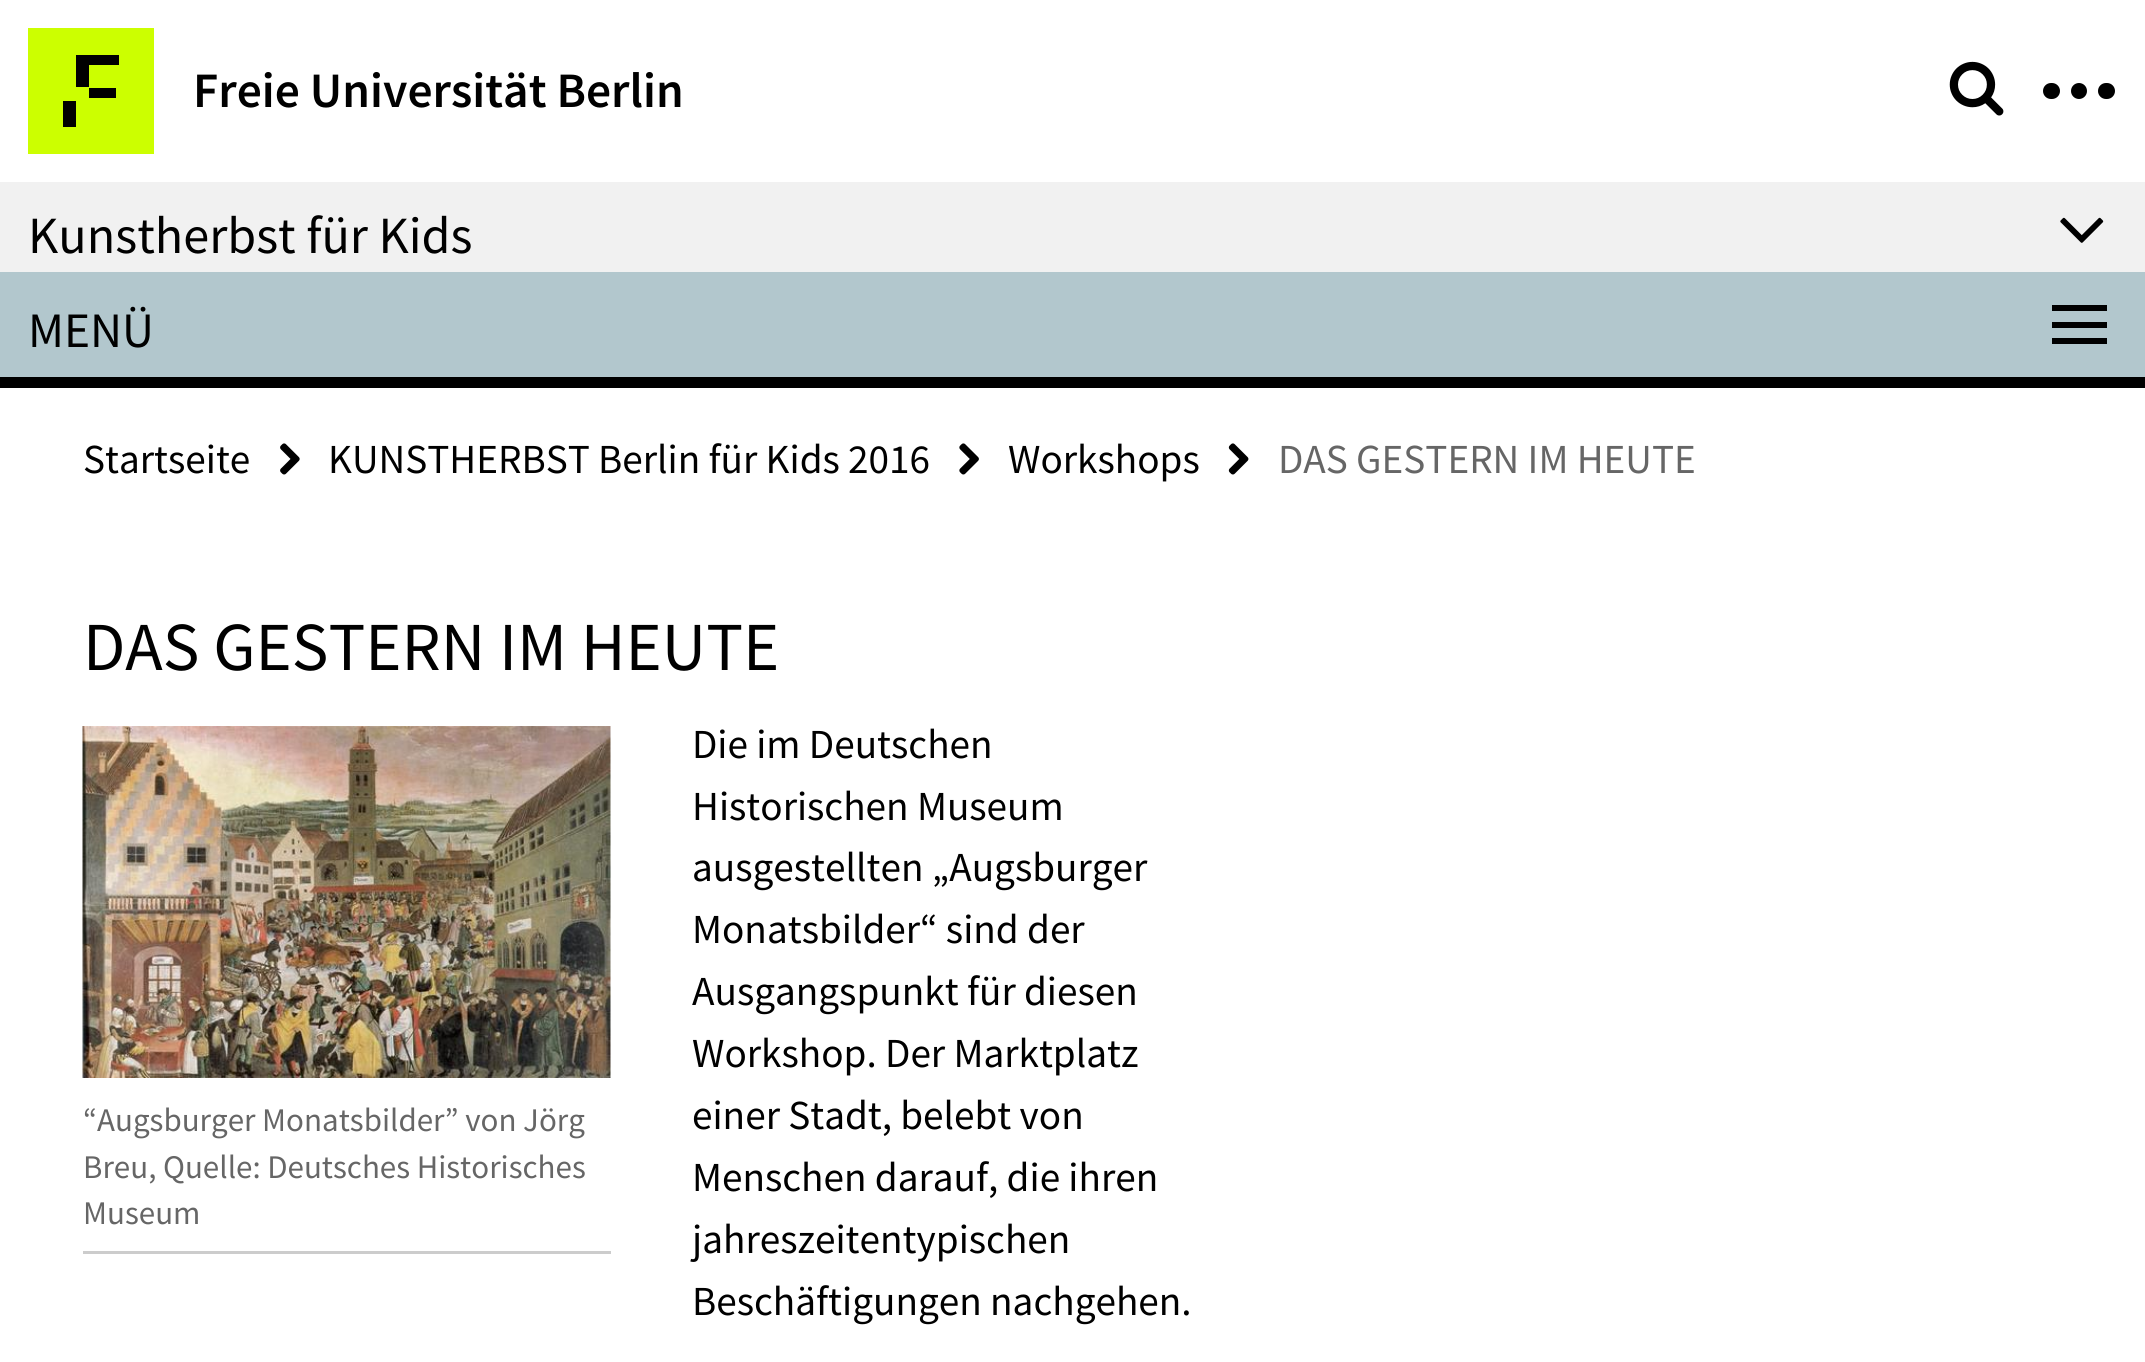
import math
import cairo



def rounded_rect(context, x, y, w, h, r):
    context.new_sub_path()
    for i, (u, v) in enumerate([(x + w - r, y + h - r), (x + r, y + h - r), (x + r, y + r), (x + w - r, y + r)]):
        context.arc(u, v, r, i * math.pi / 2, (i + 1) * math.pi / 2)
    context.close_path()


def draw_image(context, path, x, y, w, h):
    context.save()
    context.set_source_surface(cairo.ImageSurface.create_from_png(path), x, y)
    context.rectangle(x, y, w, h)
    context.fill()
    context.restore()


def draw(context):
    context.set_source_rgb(1, 1, 1)
    context.paint()
    context.set_source_rgb(204 / 255, 1, 0)
    context.rectangle(28, 28, 126, 126)
    context.fill()
    context.set_source_rgb(0, 0, 0)
    context.new_path()
    context.move_to(76, 55)
    context.line_to(119, 55)
    context.line_to(119, 65)
    context.line_to(89, 65)
    context.line_to(89, 87)
    context.line_to(76, 87)
    context.close_path()
    context.fill()
    context.rectangle(89, 88, 27, 10)
    context.fill()
    context.rectangle(63, 101, 13, 26)
    context.fill()
    draw_image(context, "images/1.png", 1949, 61, 55, 55)
    rounded_rect(context, 2043, 83, 17, 16, 8)
    context.fill()
    context.arc(2079, 91, 8, 0, 2 * math.pi)
    context.fill()
    rounded_rect(context, 2098, 83, 17, 16, 8)
    context.fill()
    context.set_source_rgb(241 / 255, 241 / 255, 241 / 255)
    context.rectangle(0, 182, 2145, 90)
    context.fill()
    draw_image(context, "images/2.png", 2060, 217, 44, 26)
    context.set_source_rgb(178 / 255, 199 / 255, 205 / 255)
    context.rectangle(0, 272, 2145, 105)
    context.fill()
    context.set_source_rgb(0, 0, 0)
    context.rectangle(0, 377, 2145, 11)
    context.fill()
    context.rectangle(2052, 305, 55, 6)
    context.fill()
    context.rectangle(2052, 322, 55, 6)
    context.fill()
    context.rectangle(2052, 338, 55, 6)
    context.fill()
    draw_image(context, "images/3.png", 280, 443, 20, 32)
    draw_image(context, "images/4.png", 959, 443, 20, 32)
    draw_image(context, "images/5.png", 1228, 443, 21, 32)
    draw_image(context, "images/6.png", 82, 726, 529, 352)
    context.set_source_rgb(204 / 255, 204 / 255, 204 / 255)
    context.rectangle(83, 1251, 528, 3)
    context.fill()
    context.select_font_face("Source Sans Pro SemiBold")
    context.set_font_size(49.5)
    context.set_source_rgb(0, 0, 0)
    context.move_to(193, 107)
    context.show_text("Freie Universität Berlin")
    context.select_font_face("Source Sans Pro")
    context.set_font_size(52.25)
    context.move_to(28, 253)
    context.show_text("Kunstherbst für Kids")
    context.set_font_size(49.5)
    context.move_to(28, 347)
    context.show_text("MENÜ")
    context.set_font_size(41.25)
    context.move_to(83, 473)
    context.show_text("Startseite")
    context.move_to(328, 473)
    context.show_text("KUNSTHERBST Berlin für Kids 2016")
    context.move_to(1008, 473)
    context.show_text("Workshops")
    context.set_source_rgb(102 / 255, 102 / 255, 102 / 255)
    context.move_to(1278, 473)
    context.show_text("DAS GESTERN IM HEUTE")
    context.set_font_size(68.75)
    context.set_source_rgb(0, 0, 0)
    context.move_to(83, 670)
    context.show_text("DAS GESTERN IM HEUTE")
    context.set_font_size(33)
    context.set_source_rgb(102 / 255, 102 / 255, 102 / 255)
    context.move_to(83, 1131)
    context.show_text("“Augsburger Monatsbilder” von Jörg")
    context.move_to(83, 1178)
    context.show_text("Breu, Quelle: Deutsches Historisches")
    context.move_to(83, 1224)
    context.show_text("Museum")
    context.set_font_size(41.25)
    context.set_source_rgb(0, 0, 0)
    context.move_to(692, 758)
    context.show_text("Die im Deutschen")
    context.move_to(692, 820)
    context.show_text("Historischen Museum")
    context.move_to(692, 881)
    context.show_text("ausgestellten „Augsburger")
    context.move_to(692, 943)
    context.show_text("Monatsbilder“ sind der")
    context.move_to(692, 1005)
    context.show_text("Ausgangspunkt für diesen")
    context.move_to(692, 1067)
    context.show_text("Workshop. Der Marktplatz")
    context.move_to(692, 1129)
    context.show_text("einer Stadt, belebt von")
    context.move_to(692, 1191)
    context.show_text("Menschen darauf, die ihren")
    context.move_to(692, 1253)
    context.show_text("jahreszeitentypischen")
    context.move_to(692, 1315)
    context.show_text("Beschäftigungen nachgehen.")


surface = cairo.ImageSurface(cairo.Format.RGB24, 2145, 1362)
context = cairo.Context(surface)
options = cairo.FontOptions()
options.set_hint_metrics(cairo.HintMetrics.OFF)
options.set_hint_style(cairo.HintStyle.NONE)
context.set_font_options(options)
context.set_miter_limit(4)
draw(context)
surface.write_to_png("out.png")
